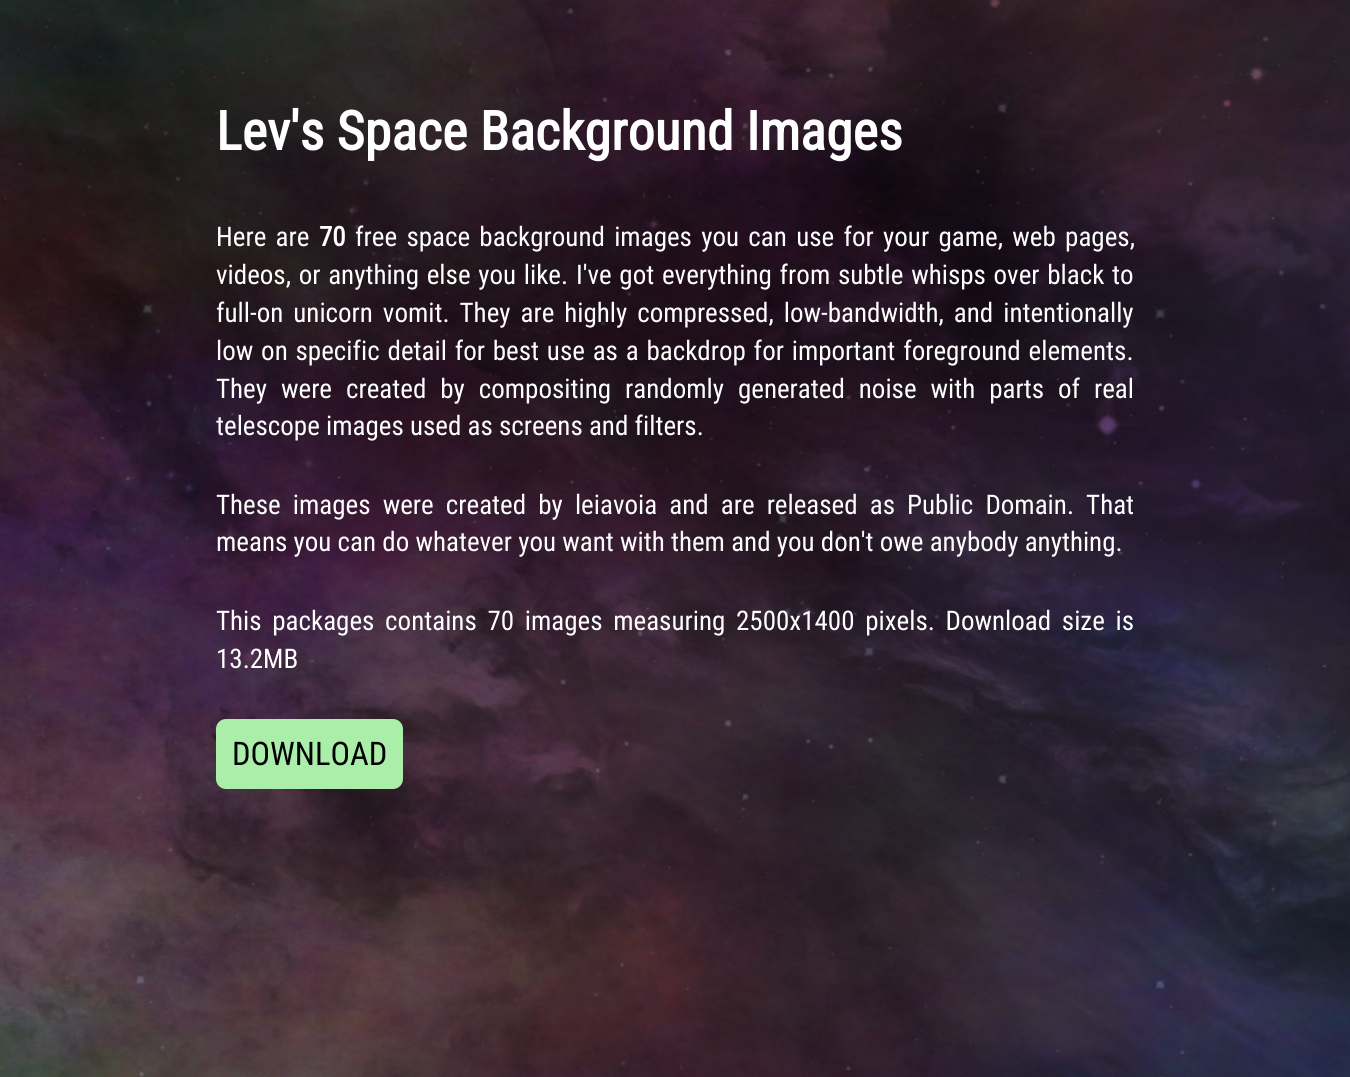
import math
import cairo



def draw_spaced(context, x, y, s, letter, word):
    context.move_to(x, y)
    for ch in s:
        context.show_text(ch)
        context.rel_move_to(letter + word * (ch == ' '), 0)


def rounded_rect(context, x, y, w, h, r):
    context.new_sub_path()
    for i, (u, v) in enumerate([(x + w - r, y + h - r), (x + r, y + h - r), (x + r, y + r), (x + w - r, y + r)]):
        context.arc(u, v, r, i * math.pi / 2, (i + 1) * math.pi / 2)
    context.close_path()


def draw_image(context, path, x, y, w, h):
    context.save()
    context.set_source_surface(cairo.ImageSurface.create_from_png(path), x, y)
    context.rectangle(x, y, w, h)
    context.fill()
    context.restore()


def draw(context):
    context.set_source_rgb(1, 1, 1)
    context.paint()
    draw_image(context, "images/1.png", 0, 0, 1350, 1077)
    context.set_source_rgb(170 / 255, 238 / 255, 170 / 255)
    rounded_rect(context, 216, 719, 187, 70, 10)
    context.fill()
    context.select_font_face("Roboto Condensed", cairo.FontSlant.NORMAL, cairo.FontWeight.BOLD)
    context.set_font_size(54)
    context.set_source_rgb(1, 1, 1)
    context.move_to(216, 150)
    context.show_text("Lev's Space Background Images")
    context.select_font_face("Roboto Condensed")
    context.set_font_size(27)
    draw_spaced(context, 216, 246, "Here are", 0, 3.1)
    context.select_font_face("Roboto Condensed", cairo.FontSlant.NORMAL, cairo.FontWeight.BOLD)
    context.move_to(319, 246)
    context.show_text("70")
    context.select_font_face("Roboto Condensed")
    draw_spaced(context, 355, 246, "free space background images you can use for your game, web pages,", 0, 3.1)
    draw_spaced(context, 216, 284, "videos, or anything else you like.", 0, 1.5)
    draw_spaced(context, 576, 284, "I've got everything from subtle whisps over black to", 0, 1.5)
    draw_spaced(context, 216, 322, "full-on unicorn vomit. They are highly compressed, low-bandwidth, and intentionally", 0, 3.75)
    draw_spaced(context, 216, 360, "low on specific detail for best use as a backdrop for important foreground elements.", 0, 1.6)
    draw_spaced(context, 216, 398, "They were created by compositing randomly generated noise with parts of real", 0, 7.75)
    context.move_to(216, 435)
    context.show_text("telescope images used as screens and filters.")
    draw_spaced(context, 216, 514, "These images were created by leiavoia and are released as Public Domain. That", 0, 5.9)
    context.move_to(216, 551)
    context.show_text("means you can do whatever you want with them and you don't owe anybody anything.")
    draw_spaced(context, 216, 630, "This packages contains 70 images measuring 2500x1400 pixels. Download size is", 0, 4.5)
    context.move_to(216, 668)
    context.show_text("13.2MB")
    context.set_font_size(32.5)
    context.set_source_rgb(0, 0, 0)
    context.move_to(232, 765)
    context.show_text("DOWNLOAD")


surface = cairo.ImageSurface(cairo.Format.RGB24, 1350, 1077)
context = cairo.Context(surface)
options = cairo.FontOptions()
options.set_hint_metrics(cairo.HintMetrics.OFF)
options.set_hint_style(cairo.HintStyle.NONE)
context.set_font_options(options)
context.set_miter_limit(4)
draw(context)
surface.write_to_png("out.png")
